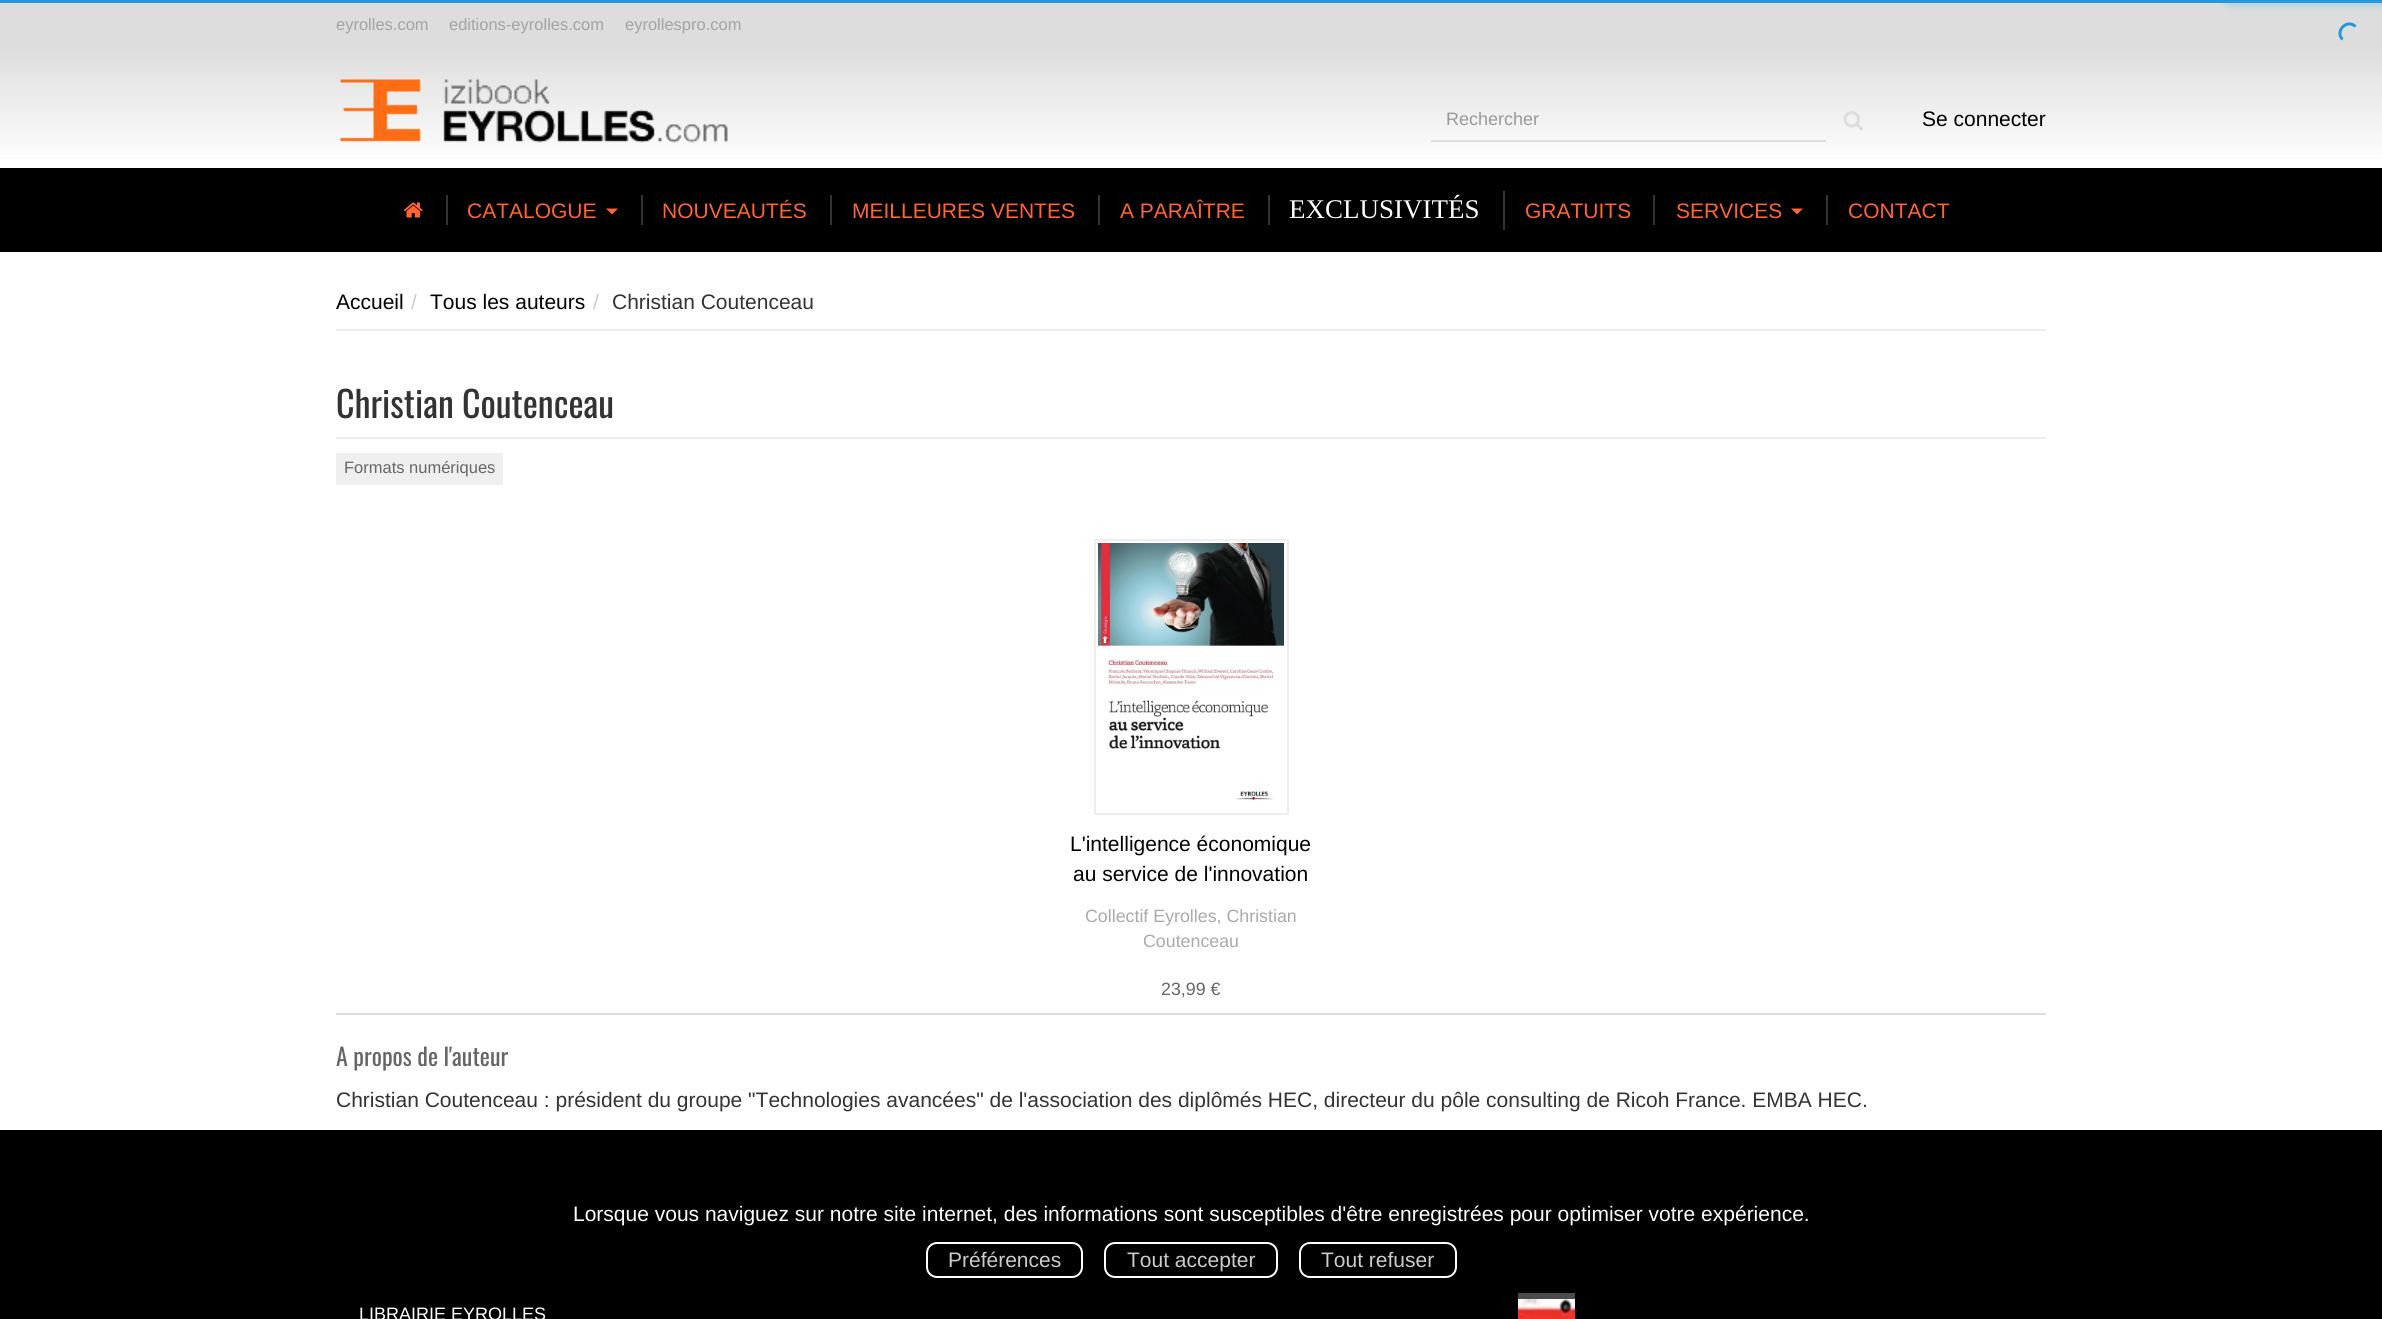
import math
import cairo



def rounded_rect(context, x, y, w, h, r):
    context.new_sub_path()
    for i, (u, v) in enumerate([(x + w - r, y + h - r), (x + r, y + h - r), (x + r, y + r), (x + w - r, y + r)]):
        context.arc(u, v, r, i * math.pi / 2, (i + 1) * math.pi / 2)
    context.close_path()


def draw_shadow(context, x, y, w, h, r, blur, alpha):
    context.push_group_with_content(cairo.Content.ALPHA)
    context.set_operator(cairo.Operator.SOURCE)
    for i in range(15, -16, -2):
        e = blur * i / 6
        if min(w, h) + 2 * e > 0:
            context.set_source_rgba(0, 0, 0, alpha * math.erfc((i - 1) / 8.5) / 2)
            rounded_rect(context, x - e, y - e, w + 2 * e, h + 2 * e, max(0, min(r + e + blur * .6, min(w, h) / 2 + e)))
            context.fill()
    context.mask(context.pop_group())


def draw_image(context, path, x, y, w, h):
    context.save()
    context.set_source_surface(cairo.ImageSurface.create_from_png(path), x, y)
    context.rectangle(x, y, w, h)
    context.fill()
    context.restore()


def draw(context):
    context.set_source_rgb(1, 1, 1)
    context.paint()
    context.set_source_rgb(34 / 255, 153 / 255, 221 / 255)
    context.rectangle(0, 0, 2382, 3)
    context.fill()
    context.set_source_rgb(221 / 255, 221 / 255, 221 / 255)
    context.rectangle(0, 3, 2382, 42)
    context.fill()
    context.set_source_rgb(34 / 255, 153 / 255, 221 / 255)
    draw_shadow(context, 2232, -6, 150, 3, 0, 7.5, 1)
    context.new_path()
    context.move_to(2342.5, 39.5)
    context.curve_to(2334.5, 31, 2347, 18.5, 2355.5, 26.5)
    context.set_source_rgb(34 / 255, 153 / 255, 221 / 255)
    context.set_line_width(3)
    context.stroke()
    gradient = cairo.LinearGradient(1191, 45, 1191, 168)
    gradient.add_color_stop_rgba(0, 221 / 255, 221 / 255, 221 / 255, 1)
    gradient.add_color_stop_rgba(1, 1, 1, 1, 1)
    context.set_source(gradient)
    context.rectangle(0, 45, 2382, 114)
    context.fill()
    draw_image(context, "images/1.png", 340, 79, 388, 64)
    context.set_source_rgb(221 / 255, 221 / 255, 221 / 255)
    context.rectangle(1431, 140, 395, 2)
    context.fill()
    draw_image(context, "images/2.png", 1843, 111, 20, 20)
    context.set_source_rgb(0, 0, 0)
    context.rectangle(0, 168, 2382, 84)
    context.fill()
    context.set_source_rgb(51 / 255, 51 / 255, 51 / 255)
    context.rectangle(446, 195, 2, 30)
    context.fill()
    draw_image(context, "images/3.png", 403, 202, 20, 16)
    context.rectangle(641, 195, 2, 30)
    context.fill()
    context.set_source_rgb(1, 101 / 255, 50 / 255)
    context.new_path()
    context.move_to(606, 208.5)
    context.line_to(618, 208.5)
    context.line_to(612, 214.5)
    context.close_path()
    context.fill()
    context.set_source_rgb(51 / 255, 51 / 255, 51 / 255)
    context.rectangle(830, 195, 2, 30)
    context.fill()
    context.rectangle(1098, 195, 2, 30)
    context.fill()
    context.rectangle(1268, 195, 2, 30)
    context.fill()
    context.rectangle(1503, 191, 2, 39)
    context.fill()
    context.rectangle(1653, 195, 2, 30)
    context.fill()
    context.rectangle(1826, 195, 2, 30)
    context.fill()
    context.set_source_rgb(1, 101 / 255, 50 / 255)
    context.new_path()
    context.move_to(1791, 208.5)
    context.line_to(1803, 208.5)
    context.line_to(1797, 214.5)
    context.close_path()
    context.fill()
    context.set_source_rgb(238 / 255, 238 / 255, 238 / 255)
    context.rectangle(336, 329, 1710, 2)
    context.fill()
    context.rectangle(336, 437, 1710, 2)
    context.fill()
    context.set_source_rgb(239 / 255, 239 / 255, 239 / 255)
    context.rectangle(336, 453, 167, 32)
    context.fill()
    context.rectangle(1095, 540, 193, 274)
    context.set_source_rgb(238 / 255, 238 / 255, 238 / 255)
    context.set_line_width(2)
    context.stroke()
    draw_image(context, "images/4.png", 1098, 543, 186, 257)
    context.set_source_rgb(221 / 255, 221 / 255, 221 / 255)
    context.rectangle(336, 1013, 1710, 2)
    context.fill()
    context.set_source_rgb(0, 0, 0)
    context.rectangle(0, 1130, 2382, 189)
    context.fill()
    draw_image(context, "images/5.png", 1518, 1293, 57, 26)
    context.set_source_rgba(0, 0, 0, 0.7)
    context.rectangle(1518, 1293, 57, 6)
    context.fill()
    rounded_rect(context, 927, 1243, 155, 34, 10)
    context.set_source_rgb(1, 1, 1)
    context.stroke()
    rounded_rect(context, 1105, 1243, 172, 34, 10)
    context.stroke()
    rounded_rect(context, 1300, 1243, 156, 34, 10)
    context.stroke()
    context.select_font_face("Liberation Sans")
    context.set_font_size(16.5)
    context.set_source_rgb(164 / 255, 163 / 255, 163 / 255)
    context.move_to(336, 30)
    context.show_text("eyrolles.com")
    context.move_to(449, 30)
    context.show_text("editions-eyrolles.com")
    context.move_to(625, 30)
    context.show_text("eyrollespro.com")
    context.set_font_size(18)
    context.set_source_rgb(153 / 255, 153 / 255, 153 / 255)
    context.move_to(1446, 125)
    context.show_text("Rechercher")
    context.set_font_size(21)
    context.set_source_rgb(0, 0, 0)
    context.move_to(1922, 126)
    context.show_text("Se connecter")
    context.set_source_rgb(1, 101 / 255, 50 / 255)
    context.move_to(467, 218)
    context.show_text("CATALOGUE")
    context.move_to(662, 218)
    context.show_text("NOUVEAUTÉS")
    context.move_to(852, 218)
    context.show_text("MEILLEURES VENTES")
    context.move_to(1120, 218)
    context.show_text("A PARAÎTRE")
    context.select_font_face("Liberation Serif")
    context.set_font_size(27)
    context.set_source_rgb(1, 1, 1)
    context.move_to(1289, 218)
    context.show_text("EXCLUSIVITÉS")
    context.select_font_face("Liberation Sans")
    context.set_font_size(21)
    context.set_source_rgb(1, 101 / 255, 50 / 255)
    context.move_to(1525, 218)
    context.show_text("GRATUITS")
    context.move_to(1676, 218)
    context.show_text("SERVICES")
    context.move_to(1848, 218)
    context.show_text("CONTACT")
    context.set_source_rgb(0, 0, 0)
    context.move_to(336, 309)
    context.show_text("Accueil")
    context.set_source_rgb(204 / 255, 204 / 255, 204 / 255)
    context.move_to(411, 309)
    context.show_text("/")
    context.set_source_rgb(0, 0, 0)
    context.move_to(430, 309)
    context.show_text("Tous les auteurs")
    context.set_source_rgb(204 / 255, 204 / 255, 204 / 255)
    context.move_to(593, 309)
    context.show_text("/")
    context.set_source_rgb(51 / 255, 51 / 255, 51 / 255)
    context.move_to(612, 309)
    context.show_text("Christian Coutenceau")
    context.select_font_face("Oswald")
    context.set_font_size(36)
    context.move_to(336, 418)
    context.show_text("Christian Coutenceau")
    context.select_font_face("Liberation Sans")
    context.set_font_size(16.5)
    context.set_source_rgb(102 / 255, 102 / 255, 102 / 255)
    context.move_to(344, 473)
    context.show_text("Formats numériques")
    context.set_font_size(21)
    context.set_source_rgb(0, 0, 0)
    context.move_to(1070, 851)
    context.show_text("L'intelligence économique")
    context.move_to(1073, 881)
    context.show_text("au service de l'innovation")
    context.set_font_size(17.8)
    context.set_source_rgb(170 / 255, 170 / 255, 170 / 255)
    context.move_to(1085, 922)
    context.show_text("Collectif Eyrolles, Christian")
    context.move_to(1143, 947)
    context.show_text("Coutenceau")
    context.set_source_rgb(102 / 255, 102 / 255, 102 / 255)
    context.move_to(1161, 995)
    context.show_text("23,99 €")
    context.select_font_face("Oswald")
    context.set_font_size(24)
    context.move_to(336, 1066)
    context.show_text("A propos de l'auteur")
    context.select_font_face("Liberation Sans")
    context.set_font_size(21)
    context.set_source_rgb(51 / 255, 51 / 255, 51 / 255)
    context.move_to(336, 1107)
    context.show_text("Christian Coutenceau : président du groupe \"Technologies avancées\" de l'association des diplômés HEC, directeur du pôle consulting de Ricoh France. EMBA HEC.")
    context.set_font_size(18)
    context.set_source_rgb(1, 1, 1)
    context.move_to(359, 1320)
    context.show_text("LIBRAIRIE EYROLLES")
    context.set_font_size(21)
    context.move_to(573, 1221)
    context.show_text("Lorsque vous naviguez sur notre site internet, des informations sont susceptibles d'être enregistrées pour optimiser votre expérience.")
    context.set_source_rgb(204 / 255, 204 / 255, 204 / 255)
    context.move_to(948, 1267)
    context.show_text("Préférences")
    context.move_to(1127, 1267)
    context.show_text("Tout accepter")
    context.move_to(1321, 1267)
    context.show_text("Tout refuser")


surface = cairo.ImageSurface(cairo.Format.RGB24, 2382, 1319)
context = cairo.Context(surface)
options = cairo.FontOptions()
options.set_hint_metrics(cairo.HintMetrics.OFF)
options.set_hint_style(cairo.HintStyle.NONE)
context.set_font_options(options)
context.set_miter_limit(4)
draw(context)
surface.write_to_png("out.png")
